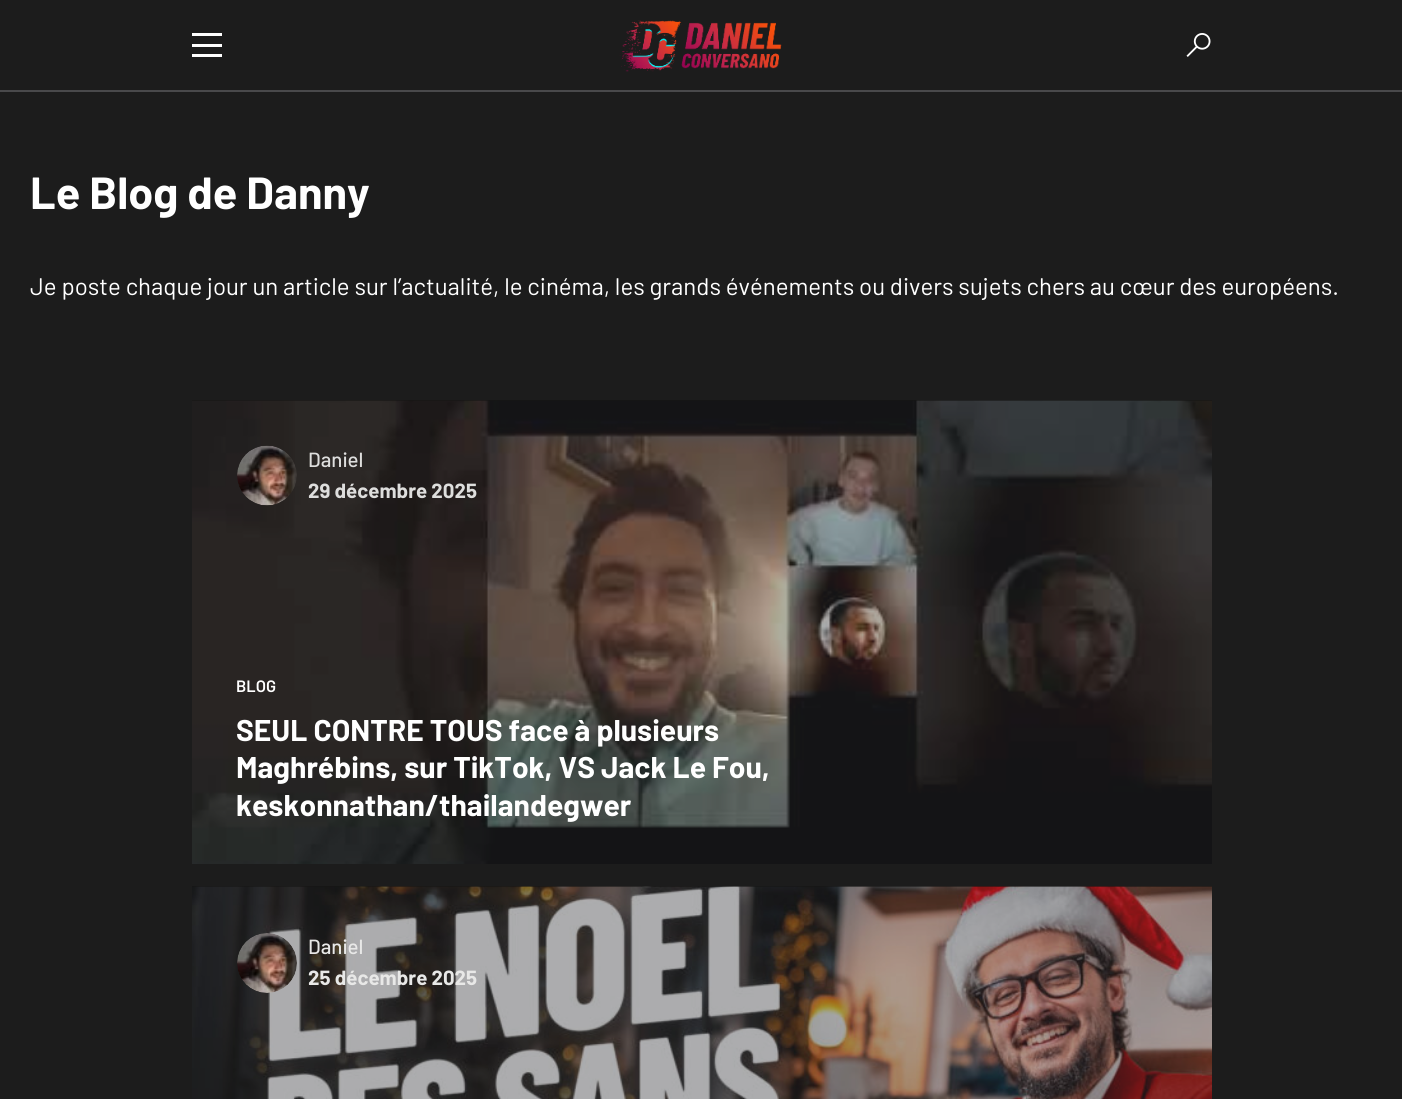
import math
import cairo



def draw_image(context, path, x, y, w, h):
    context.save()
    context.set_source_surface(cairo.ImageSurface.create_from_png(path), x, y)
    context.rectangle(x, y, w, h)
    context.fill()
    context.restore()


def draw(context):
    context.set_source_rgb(28 / 255, 28 / 255, 28 / 255)
    context.paint()
    context.set_source_rgb(73 / 255, 73 / 255, 75 / 255)
    context.rectangle(0, 90, 1402, 2)
    context.fill()
    context.set_source_rgb(1, 1, 1)
    context.rectangle(192, 33, 30, 3)
    context.fill()
    context.rectangle(192, 44, 30, 3)
    context.fill()
    context.rectangle(192, 54, 30, 3)
    context.fill()
    draw_image(context, "images/1.png", 619, 20, 163, 52)
    draw_image(context, "images/2.png", 1186, 33, 25, 24)
    draw_image(context, "images/3.png", 192, 400, 1020, 464)
    draw_image(context, "images/4.png", 237, 445, 60, 61)
    draw_image(context, "images/5.png", 192, 886, 1020, 213)
    draw_image(context, "images/6.png", 237, 933, 60, 60)
    context.select_font_face("Barlow", cairo.FontSlant.NORMAL, cairo.FontWeight.BOLD)
    context.set_font_size(45)
    context.move_to(30, 209)
    context.show_text("Le Blog de Danny")
    context.select_font_face("Barlow")
    context.set_font_size(24)
    context.move_to(30, 295)
    context.show_text("Je poste chaque jour un article sur l’actualité, le cinéma, les grands événements ou divers sujets chers au cœur des européens.")
    context.select_font_face("Barlow Medium")
    context.set_font_size(20.5)
    context.set_source_rgb(222 / 255, 222 / 255, 221 / 255)
    context.move_to(308, 467)
    context.show_text("Daniel")
    context.select_font_face("Barlow", cairo.FontSlant.NORMAL, cairo.FontWeight.BOLD)
    context.move_to(308, 498)
    context.show_text("29 décembre 2025")
    context.select_font_face("Barlow SemiBold")
    context.set_font_size(16.5)
    context.set_source_rgb(1, 1, 1)
    context.move_to(236, 692)
    context.show_text("BLOG")
    context.select_font_face("Barlow", cairo.FontSlant.NORMAL, cairo.FontWeight.BOLD)
    context.set_font_size(30)
    context.move_to(236, 741)
    context.show_text("SEUL CONTRE TOUS face à plusieurs")
    context.move_to(236, 778)
    context.show_text("Maghrébins, sur TikTok, VS Jack Le Fou,")
    context.move_to(236, 816)
    context.show_text("keskonnathan/thailandegwer")
    context.select_font_face("Barlow Medium")
    context.set_font_size(20.5)
    context.set_source_rgb(232 / 255, 232 / 255, 231 / 255)
    context.move_to(308, 954)
    context.show_text("Daniel")
    context.select_font_face("Barlow", cairo.FontSlant.NORMAL, cairo.FontWeight.BOLD)
    context.move_to(308, 985)
    context.show_text("25 décembre 2025")


surface = cairo.ImageSurface(cairo.Format.RGB24, 1402, 1099)
context = cairo.Context(surface)
options = cairo.FontOptions()
options.set_hint_metrics(cairo.HintMetrics.OFF)
options.set_hint_style(cairo.HintStyle.NONE)
context.set_font_options(options)
context.set_miter_limit(4)
draw(context)
surface.write_to_png("out.png")
